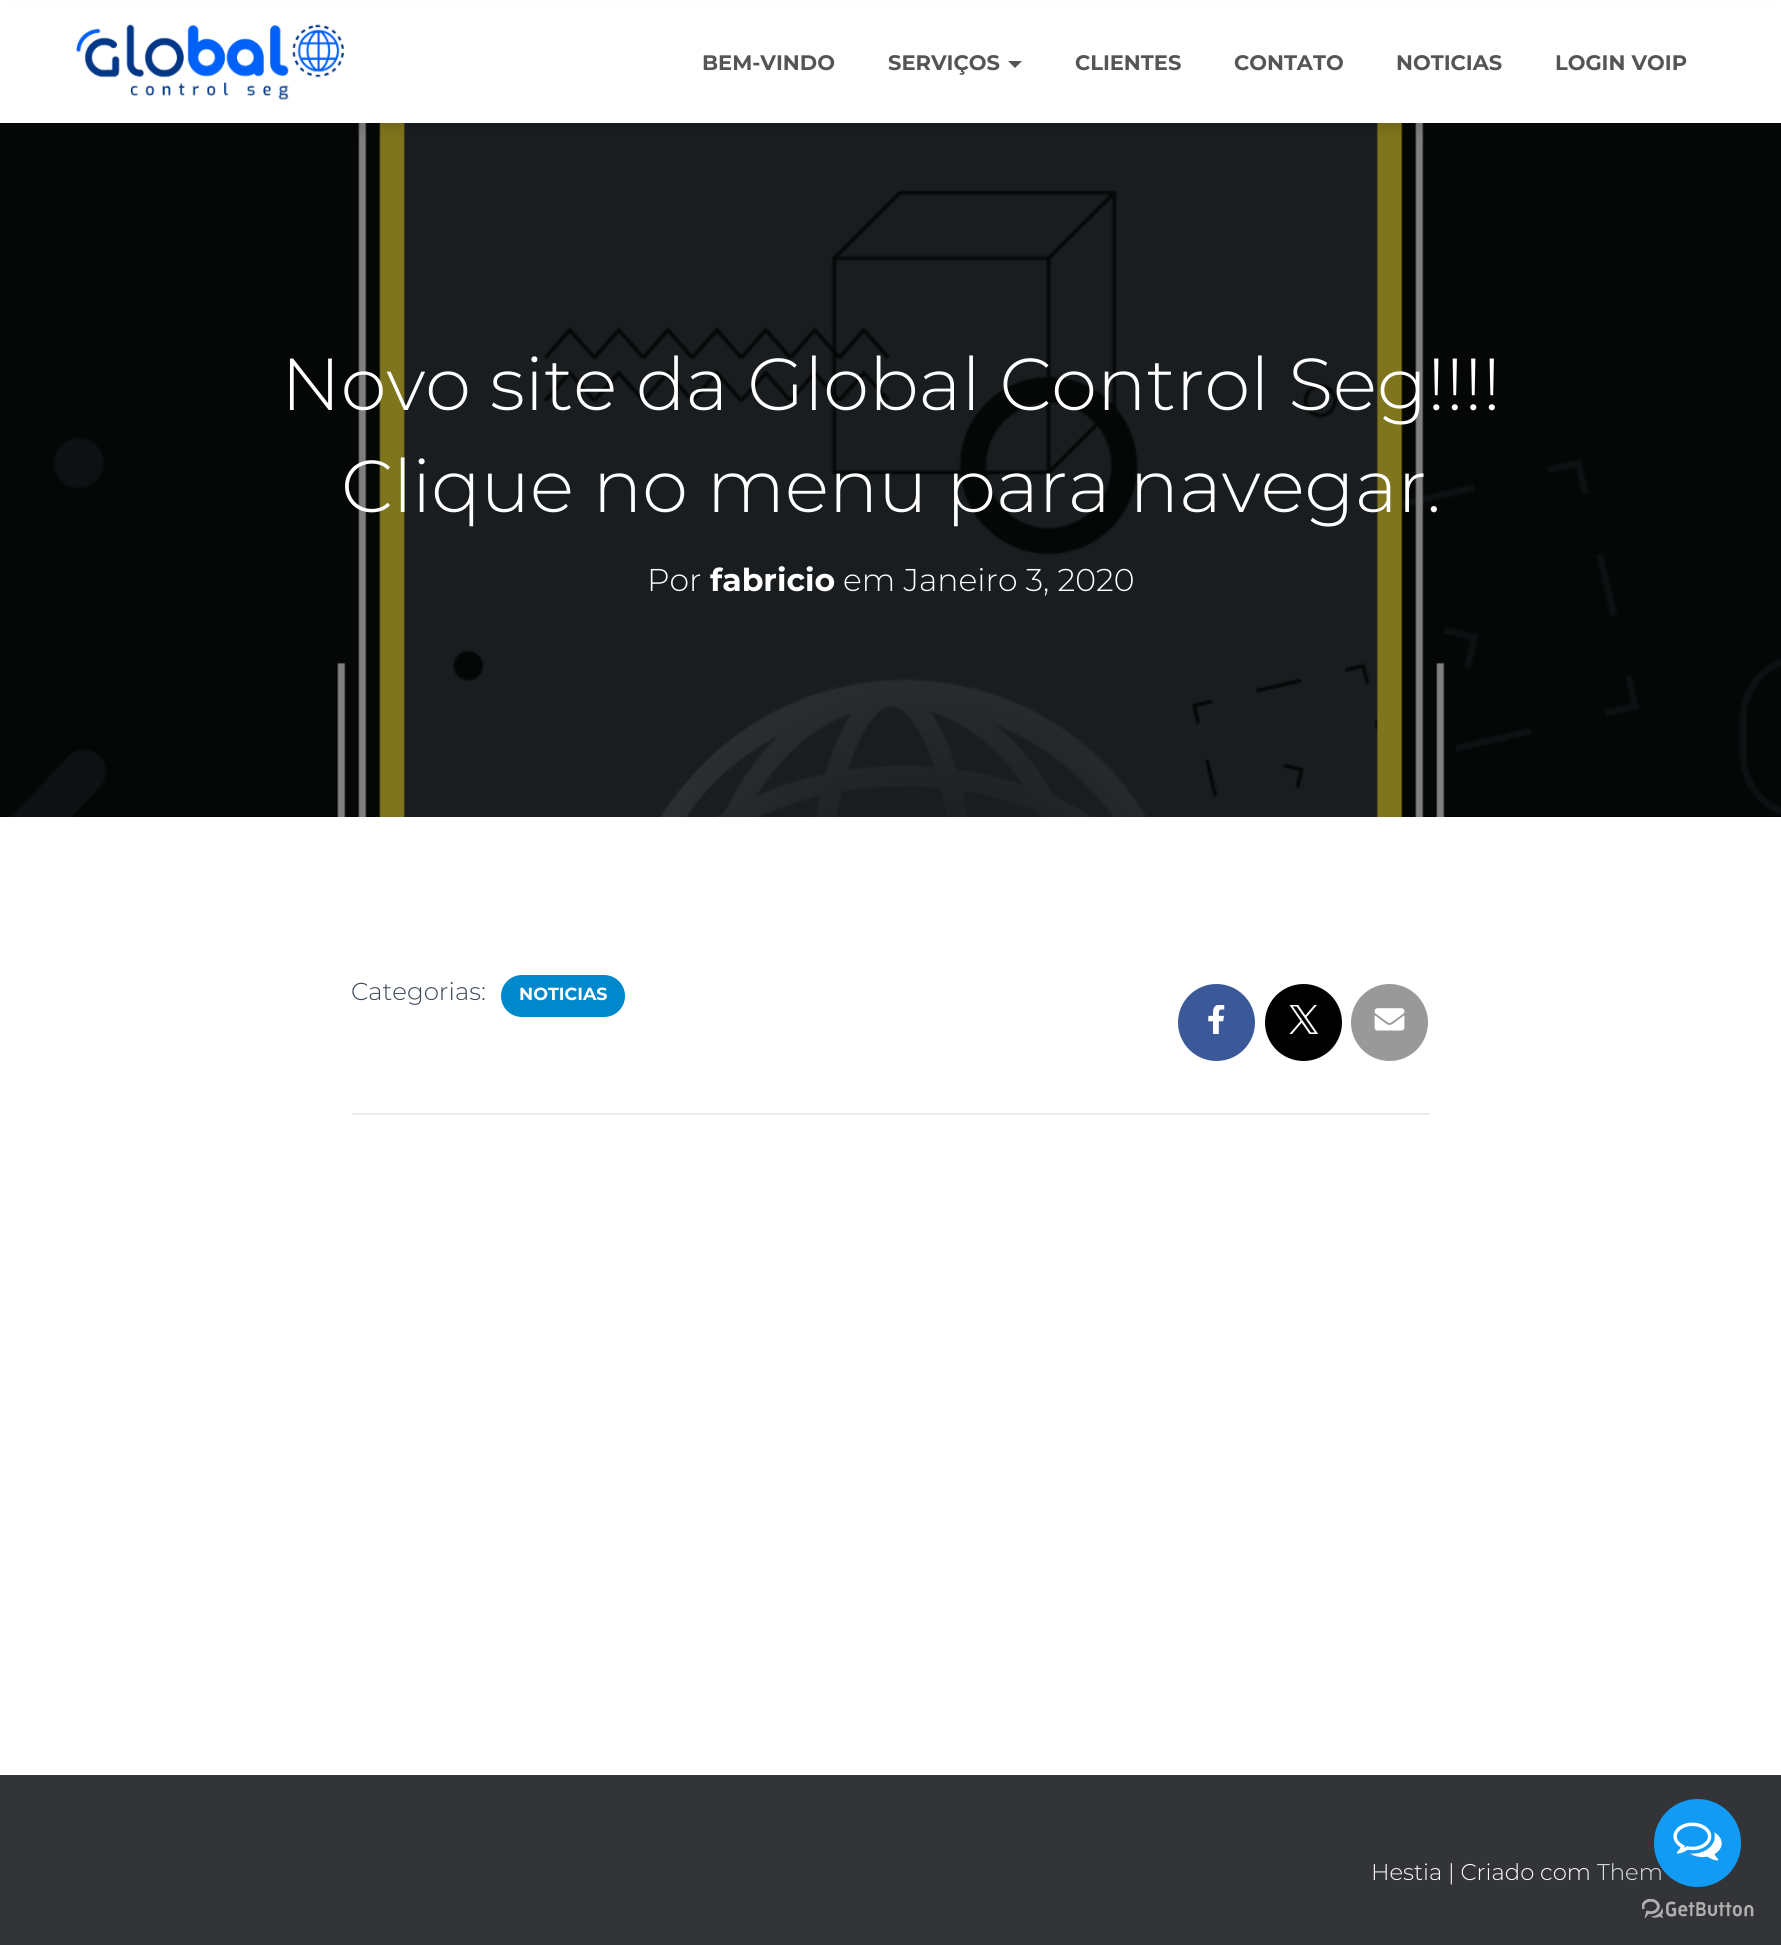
import math
import cairo



def rounded_rect(context, x, y, w, h, r):
    context.new_sub_path()
    for i, (u, v) in enumerate([(x + w - r, y + h - r), (x + r, y + h - r), (x + r, y + r), (x + w - r, y + r)]):
        context.arc(u, v, r, i * math.pi / 2, (i + 1) * math.pi / 2)
    context.close_path()


def draw_shadow(context, x, y, w, h, r, blur, alpha):
    context.push_group_with_content(cairo.Content.ALPHA)
    context.set_operator(cairo.Operator.SOURCE)
    for i in range(15, -16, -2):
        e = blur * i / 6
        if min(w, h) + 2 * e > 0:
            context.set_source_rgba(0, 0, 0, alpha * math.erfc((i - 1) / 8.5) / 2)
            rounded_rect(context, x - e, y - e, w + 2 * e, h + 2 * e, max(0, min(r + e + blur * .6, min(w, h) / 2 + e)))
            context.fill()
    context.mask(context.pop_group())


def draw_image(context, path, x, y, w, h):
    context.save()
    context.set_source_surface(cairo.ImageSurface.create_from_png(path), x, y)
    context.rectangle(x, y, w, h)
    context.fill()
    context.restore()


def draw(context):
    context.set_source_rgb(1, 1, 1)
    context.paint()
    draw_image(context, "images/1.png", 0, 123, 1781, 694)
    context.set_source_rgba(0, 0, 0, 0.5)
    context.rectangle(0, 123, 1781, 694)
    context.fill()
    context.set_source_rgb(0, 0, 0)
    draw_shadow(context, 7, 18, 1768, 108, 0, 9, 0.15)
    context.set_source_rgb(1, 1, 1)
    context.rectangle(0, 5, 1781, 118)
    context.fill()
    draw_image(context, "images/2.png", 76, 24, 268, 76)
    context.set_source_rgb(85 / 255, 85 / 255, 85 / 255)
    context.new_path()
    context.move_to(1008, 61)
    context.line_to(1022, 61)
    context.line_to(1015, 68)
    context.close_path()
    context.fill()
    context.set_source_rgb(0, 136 / 255, 204 / 255)
    rounded_rect(context, 501, 975, 124, 42, 21)
    context.fill()
    context.set_source_rgb(59 / 255, 89 / 255, 152 / 255)
    context.arc(1216.5, 1022.5, 38.5, 0, 2 * math.pi)
    context.fill()
    draw_image(context, "images/3.png", 1208, 1005, 17, 29)
    context.set_source_rgb(0, 0, 0)
    context.arc(1303.5, 1022.5, 38.5, 0, 2 * math.pi)
    context.fill()
    draw_image(context, "images/4.png", 1289, 1005, 29, 29)
    context.set_source_rgb(153 / 255, 153 / 255, 153 / 255)
    context.arc(1389.5, 1022.5, 38.5, 0, 2 * math.pi)
    context.fill()
    draw_image(context, "images/5.png", 1374, 1008, 31, 23)
    context.set_source_rgb(238 / 255, 238 / 255, 238 / 255)
    context.rectangle(352, 1113, 1078, 2)
    context.fill()
    context.set_source_rgb(50 / 255, 52 / 255, 55 / 255)
    context.rectangle(0, 1775, 1781, 170)
    context.fill()
    draw_image(context, "images/7.png", 1642, 1899, 112, 19)
    context.select_font_face("Montserrat", cairo.FontSlant.NORMAL, cairo.FontWeight.BOLD)
    context.set_font_size(21)
    context.set_source_rgb(85 / 255, 85 / 255, 85 / 255)
    context.move_to(702, 70)
    context.show_text("BEM-VINDO")
    context.move_to(888, 70)
    context.show_text("SERVIÇOS")
    context.move_to(1075, 70)
    context.show_text("CLIENTES")
    context.move_to(1234, 70)
    context.show_text("CONTATO")
    context.move_to(1396, 70)
    context.show_text("NOTICIAS")
    context.move_to(1555, 70)
    context.show_text("LOGIN VOIP")
    context.select_font_face("Montserrat Light")
    context.set_font_size(73.5)
    context.set_source_rgb(1, 1, 1)
    context.move_to(281, 410)
    context.show_text("Novo site da Global Control Seg!!!!")
    context.move_to(341, 512)
    context.show_text("Clique no menu para navegar.")
    context.set_font_size(31.5)
    context.move_to(647, 591)
    context.show_text("Por")
    context.select_font_face("Montserrat", cairo.FontSlant.NORMAL, cairo.FontWeight.BOLD)
    context.move_to(710, 591)
    context.show_text("fabricio")
    context.select_font_face("Montserrat Light")
    context.move_to(843, 591)
    context.show_text("em Janeiro 3, 2020")
    context.set_font_size(24.5)
    context.set_source_rgb(60 / 255, 72 / 255, 88 / 255)
    context.move_to(351, 1000)
    context.show_text("Categorias:")
    context.select_font_face("Montserrat", cairo.FontSlant.NORMAL, cairo.FontWeight.BOLD)
    context.set_font_size(17.5)
    context.set_source_rgb(1, 1, 1)
    context.move_to(519, 1000)
    context.show_text("NOTICIAS")
    context.select_font_face("Montserrat Light")
    context.set_font_size(22.75)
    context.move_to(1371, 1880)
    context.show_text("Hestia | Criado com")
    context.set_source_rgb(226 / 255, 227 / 255, 227 / 255)
    context.move_to(1597, 1880)
    context.show_text("Them")
    context.set_source_rgb(18 / 255, 155 / 255, 244 / 255)
    rounded_rect(context, 1654, 1799, 87, 88, 43.5)
    context.fill()
    draw_image(context, "images/6.png", 1673, 1822, 49, 39)


surface = cairo.ImageSurface(cairo.Format.RGB24, 1781, 1945)
context = cairo.Context(surface)
options = cairo.FontOptions()
options.set_hint_metrics(cairo.HintMetrics.OFF)
options.set_hint_style(cairo.HintStyle.NONE)
context.set_font_options(options)
context.set_miter_limit(4)
draw(context)
surface.write_to_png("out.png")
